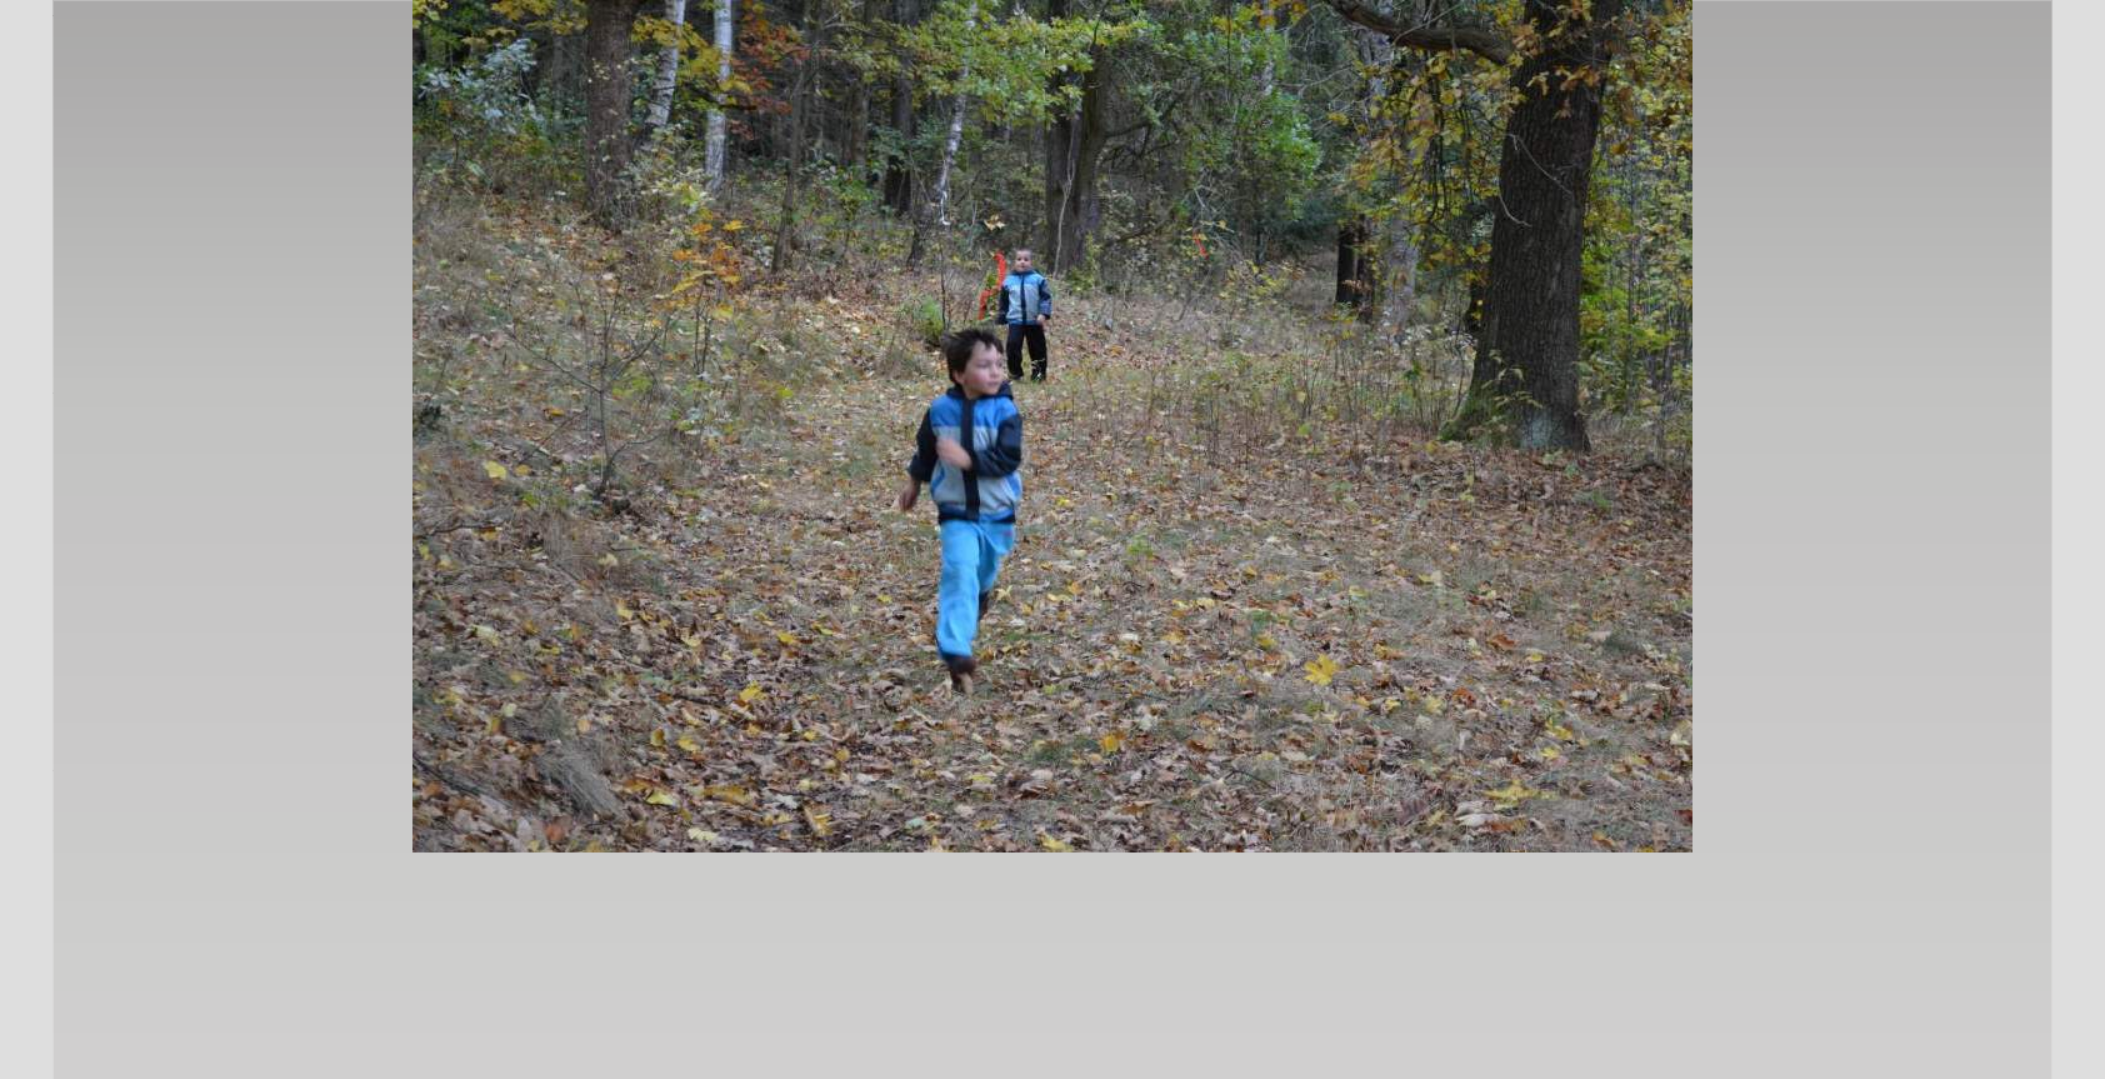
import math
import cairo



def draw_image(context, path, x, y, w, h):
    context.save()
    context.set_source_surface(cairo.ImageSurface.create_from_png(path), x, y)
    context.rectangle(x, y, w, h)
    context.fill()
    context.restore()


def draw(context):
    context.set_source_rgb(222 / 255, 222 / 255, 222 / 255)
    context.paint()
    draw_image(context, "images/1.png", 52, 0, 2001, 1079)
    draw_image(context, "images/2.png", 412, 0, 1281, 853)


surface = cairo.ImageSurface(cairo.Format.RGB24, 2105, 1079)
context = cairo.Context(surface)
options = cairo.FontOptions()
options.set_hint_metrics(cairo.HintMetrics.OFF)
options.set_hint_style(cairo.HintStyle.NONE)
context.set_font_options(options)
context.set_miter_limit(4)
draw(context)
surface.write_to_png("out.png")
